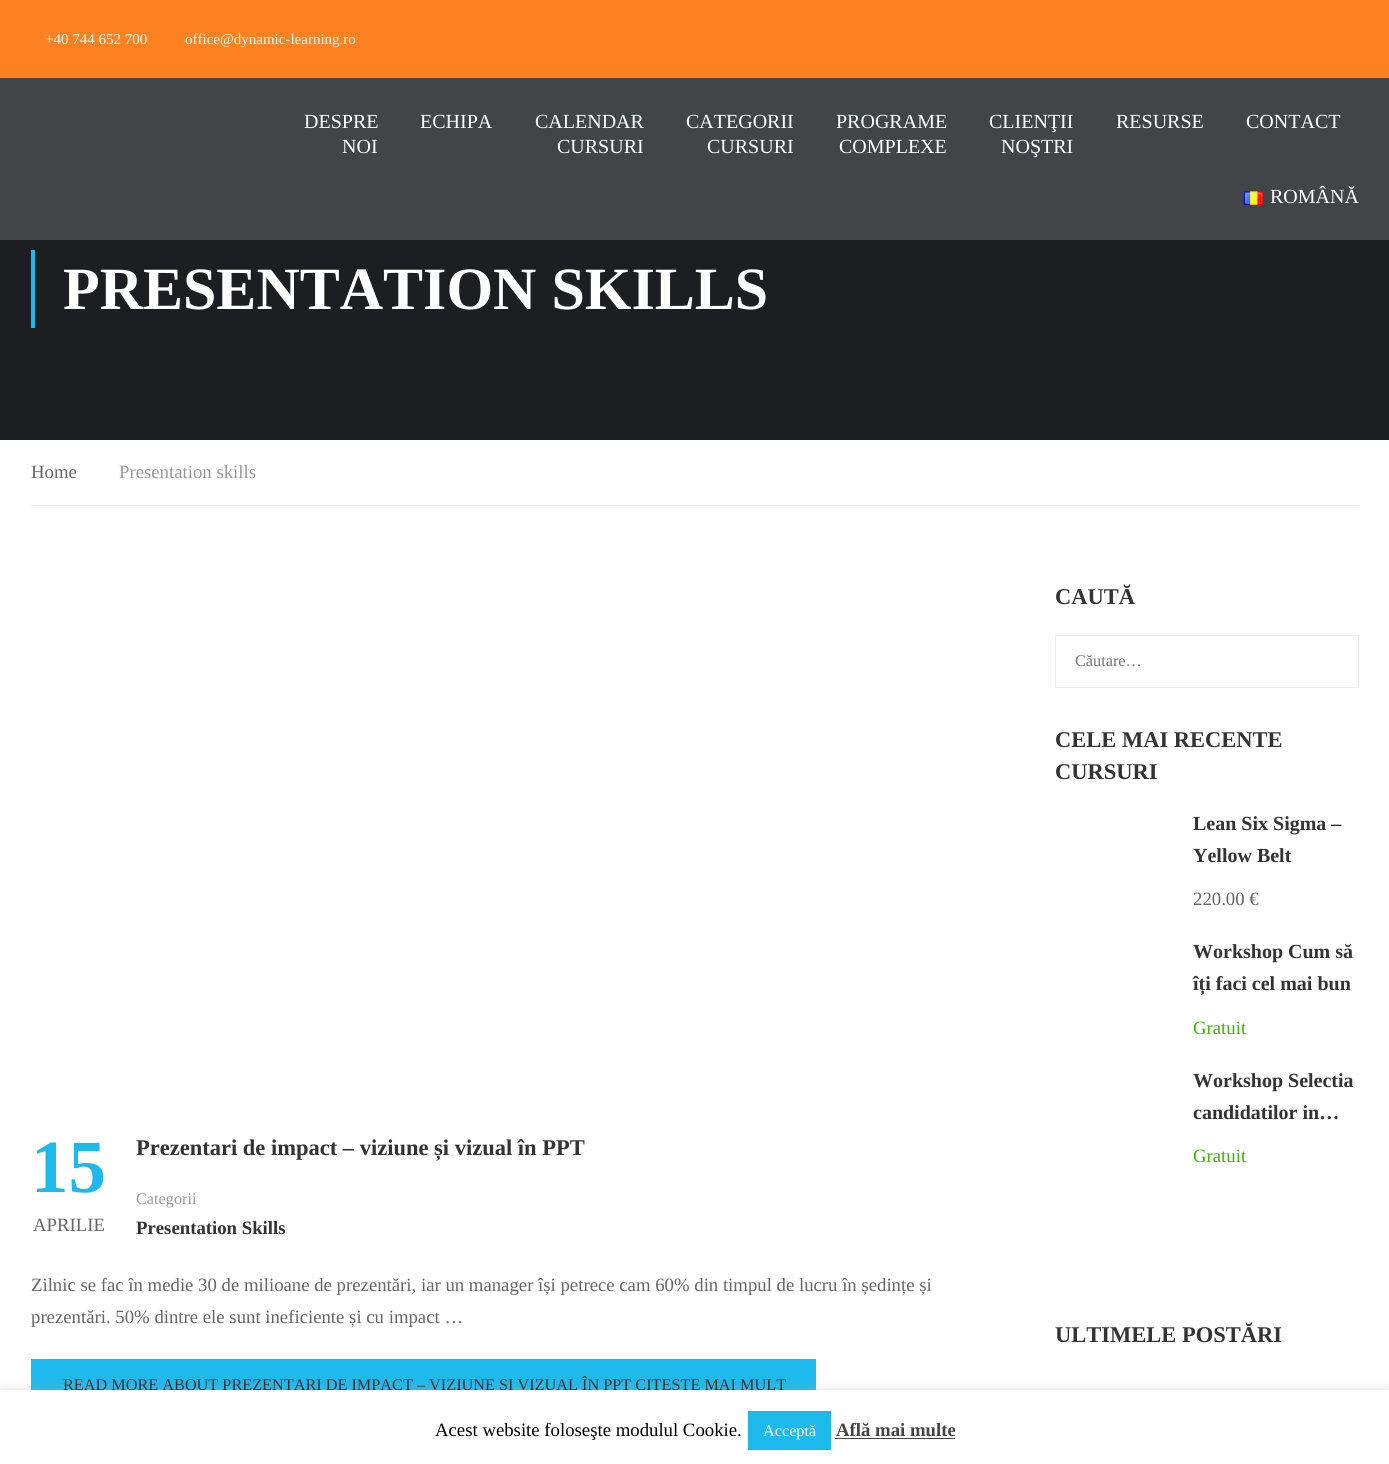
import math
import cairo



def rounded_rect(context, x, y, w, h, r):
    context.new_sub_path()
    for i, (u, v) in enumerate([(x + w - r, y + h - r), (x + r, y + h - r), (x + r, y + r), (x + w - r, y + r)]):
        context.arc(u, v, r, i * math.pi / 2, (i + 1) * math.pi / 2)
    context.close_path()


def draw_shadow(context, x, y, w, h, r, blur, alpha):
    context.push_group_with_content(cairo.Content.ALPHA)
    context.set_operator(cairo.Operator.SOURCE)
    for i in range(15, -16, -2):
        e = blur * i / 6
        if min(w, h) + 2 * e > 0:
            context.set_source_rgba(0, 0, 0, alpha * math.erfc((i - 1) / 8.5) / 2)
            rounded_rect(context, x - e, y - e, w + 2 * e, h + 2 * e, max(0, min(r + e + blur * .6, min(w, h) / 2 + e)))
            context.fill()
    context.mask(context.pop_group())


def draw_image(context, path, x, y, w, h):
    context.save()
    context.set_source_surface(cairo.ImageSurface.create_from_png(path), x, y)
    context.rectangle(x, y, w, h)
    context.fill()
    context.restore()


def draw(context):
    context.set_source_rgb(1, 1, 1)
    context.paint()
    context.set_source_rgb(65 / 255, 69 / 255, 72 / 255)
    context.rectangle(0, 78, 1389, 162)
    context.fill()
    context.set_source_rgb(253 / 255, 128 / 255, 33 / 255)
    context.rectangle(0, 0, 1389, 78)
    context.fill()
    draw_image(context, "images/1.png", 1243, 191, 21, 14)
    context.set_source_rgb(28 / 255, 30 / 255, 34 / 255)
    context.rectangle(0, 240, 1389, 200)
    context.fill()
    context.set_source_rgb(29 / 255, 185 / 255, 237 / 255)
    context.rectangle(31, 250, 4, 78)
    context.fill()
    context.set_source_rgb(238 / 255, 238 / 255, 238 / 255)
    context.rectangle(31, 505, 1328, 1)
    context.fill()
    context.set_source_rgb(29 / 255, 185 / 255, 237 / 255)
    context.rectangle(31, 1359, 785, 31)
    context.fill()
    context.rectangle(1055.5, 635.5, 303, 52)
    context.set_source_rgb(238 / 255, 238 / 255, 238 / 255)
    context.set_line_width(1)
    context.stroke()
    context.set_source_rgb(172 / 255, 171 / 255, 171 / 255)
    draw_shadow(context, 0, 1389, 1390, 75, 0, 6, 0.3)
    context.select_font_face("Liberation Serif")
    context.set_font_size(15)
    context.set_source_rgb(1, 1, 1)
    context.move_to(45, 44)
    context.show_text("+40 744 652 700")
    context.move_to(185, 44)
    context.show_text("office@dynamic-learning.ro")
    context.set_font_size(20)
    context.move_to(304, 128)
    context.show_text("DESPRE")
    context.move_to(342, 153)
    context.show_text("NOI")
    context.move_to(420, 128)
    context.show_text("ECHIPA")
    context.move_to(535, 128)
    context.show_text("CALENDAR")
    context.move_to(557, 153)
    context.show_text("CURSURI")
    context.move_to(686, 128)
    context.show_text("CATEGORII")
    context.move_to(707, 153)
    context.show_text("CURSURI")
    context.move_to(836, 128)
    context.show_text("PROGRAME")
    context.move_to(839, 153)
    context.show_text("COMPLEXE")
    context.move_to(989, 128)
    context.show_text("CLIENŢII")
    context.move_to(1001, 153)
    context.show_text("NOŞTRI")
    context.move_to(1116, 128)
    context.show_text("RESURSE")
    context.move_to(1246, 128)
    context.show_text("CONTACT")
    context.move_to(1270, 203)
    context.show_text("ROMÂNĂ")
    context.select_font_face("Liberation Serif", cairo.FontSlant.NORMAL, cairo.FontWeight.BOLD)
    context.set_font_size(60)
    context.move_to(63, 309)
    context.show_text("PRESENTATION SKILLS")
    context.select_font_face("Liberation Serif")
    context.set_font_size(18.75)
    context.set_source_rgb(102 / 255, 102 / 255, 102 / 255)
    context.move_to(31, 478)
    context.show_text("Home")
    context.set_source_rgb(153 / 255, 153 / 255, 153 / 255)
    context.move_to(119, 478)
    context.show_text("Presentation skills")
    context.select_font_face("Liberation Serif", cairo.FontSlant.NORMAL, cairo.FontWeight.BOLD)
    context.set_font_size(75)
    context.set_source_rgb(29 / 255, 185 / 255, 237 / 255)
    context.move_to(31, 1192)
    context.show_text("15")
    context.select_font_face("Liberation Serif")
    context.set_font_size(18.75)
    context.set_source_rgb(102 / 255, 102 / 255, 102 / 255)
    context.move_to(33, 1231)
    context.show_text("APRILIE")
    context.select_font_face("Liberation Serif", cairo.FontSlant.NORMAL, cairo.FontWeight.BOLD)
    context.set_font_size(22.5)
    context.set_source_rgb(51 / 255, 51 / 255, 51 / 255)
    context.move_to(136, 1155)
    context.show_text("Prezentari de impact – viziune și vizual în PPT")
    context.select_font_face("Liberation Serif")
    context.set_font_size(16.25)
    context.set_source_rgb(153 / 255, 153 / 255, 153 / 255)
    context.move_to(136, 1204)
    context.show_text("Categorii")
    context.select_font_face("Liberation Serif", cairo.FontSlant.NORMAL, cairo.FontWeight.BOLD)
    context.set_font_size(18.75)
    context.set_source_rgb(51 / 255, 51 / 255, 51 / 255)
    context.move_to(136, 1234)
    context.show_text("Presentation Skills")
    context.select_font_face("Liberation Serif")
    context.set_source_rgb(102 / 255, 102 / 255, 102 / 255)
    context.move_to(31, 1291)
    context.show_text("Zilnic se fac în medie 30 de milioane de prezentări, iar un manager își petrece cam 60% din timpul de lucru în ședințe și")
    context.move_to(31, 1323)
    context.show_text("prezentări. 50% dintre ele sunt ineficiente și cu impact …")
    context.set_font_size(16.25)
    context.set_source_rgb(51 / 255, 51 / 255, 51 / 255)
    context.move_to(63, 1390)
    context.show_text("READ MORE ABOUT PREZENTARI DE IMPACT – VIZIUNE ȘI VIZUAL ÎN PPT CITESTE MAI MULT")
    context.select_font_face("Liberation Serif", cairo.FontSlant.NORMAL, cairo.FontWeight.BOLD)
    context.set_font_size(22.5)
    context.move_to(1055, 604)
    context.show_text("CAUTĂ")
    context.select_font_face("Liberation Serif")
    context.set_font_size(16.25)
    context.set_source_rgb(117 / 255, 117 / 255, 117 / 255)
    context.move_to(1075, 666)
    context.show_text("Căutare…")
    context.select_font_face("Liberation Serif", cairo.FontSlant.NORMAL, cairo.FontWeight.BOLD)
    context.set_font_size(22.5)
    context.set_source_rgb(51 / 255, 51 / 255, 51 / 255)
    context.move_to(1055, 747)
    context.show_text("CELE MAI RECENTE")
    context.move_to(1055, 779)
    context.show_text("CURSURI")
    context.set_font_size(20)
    context.move_to(1193, 830)
    context.show_text("Lean Six Sigma –")
    context.move_to(1193, 862)
    context.show_text("Yellow Belt")
    context.select_font_face("Liberation Serif")
    context.set_font_size(18.75)
    context.set_source_rgb(102 / 255, 102 / 255, 102 / 255)
    context.move_to(1193, 905)
    context.show_text("220.00 €")
    context.select_font_face("Liberation Serif", cairo.FontSlant.NORMAL, cairo.FontWeight.BOLD)
    context.set_font_size(20)
    context.set_source_rgb(51 / 255, 51 / 255, 51 / 255)
    context.move_to(1193, 958)
    context.show_text("Workshop Cum să")
    context.move_to(1193, 990)
    context.show_text("îți faci cel mai bun")
    context.select_font_face("Liberation Serif")
    context.set_font_size(18.75)
    context.set_source_rgb(58 / 255, 181 / 255, 0)
    context.move_to(1193, 1034)
    context.show_text("Gratuit")
    context.select_font_face("Liberation Serif", cairo.FontSlant.NORMAL, cairo.FontWeight.BOLD)
    context.set_font_size(20)
    context.set_source_rgb(51 / 255, 51 / 255, 51 / 255)
    context.move_to(1193, 1087)
    context.show_text("Workshop Selectia")
    context.move_to(1193, 1119)
    context.show_text("candidatilor in…")
    context.select_font_face("Liberation Serif")
    context.set_font_size(18.75)
    context.set_source_rgb(58 / 255, 181 / 255, 0)
    context.move_to(1193, 1162)
    context.show_text("Gratuit")
    context.select_font_face("Liberation Serif", cairo.FontSlant.NORMAL, cairo.FontWeight.BOLD)
    context.set_font_size(22.5)
    context.set_source_rgb(51 / 255, 51 / 255, 51 / 255)
    context.move_to(1055, 1342)
    context.show_text("ULTIMELE POSTĂRI")
    context.set_source_rgb(1, 1, 1)
    context.rectangle(0, 1390, 1389, 74)
    context.fill()
    context.select_font_face("Liberation Serif")
    context.set_font_size(18.75)
    context.set_source_rgb(0, 0, 0)
    context.move_to(435, 1436)
    context.show_text("Acest website foloseşte modulul Cookie.")
    context.set_source_rgb(29 / 255, 185 / 255, 237 / 255)
    context.rectangle(748, 1411, 83, 39)
    context.fill()
    context.set_font_size(16.25)
    context.set_source_rgb(1, 1, 1)
    context.move_to(763, 1436)
    context.show_text("Acceptă")
    context.select_font_face("Liberation Serif", cairo.FontSlant.NORMAL, cairo.FontWeight.BOLD)
    context.set_font_size(18.75)
    context.set_source_rgb(68 / 255, 68 / 255, 68 / 255)
    context.move_to(836, 1436)
    context.show_text("Află mai multe")
    context.rectangle(835, 1438, 120, 1)
    context.fill()


surface = cairo.ImageSurface(cairo.Format.RGB24, 1389, 1464)
context = cairo.Context(surface)
options = cairo.FontOptions()
options.set_hint_metrics(cairo.HintMetrics.OFF)
options.set_hint_style(cairo.HintStyle.NONE)
context.set_font_options(options)
context.set_miter_limit(4)
draw(context)
surface.write_to_png("out.png")
